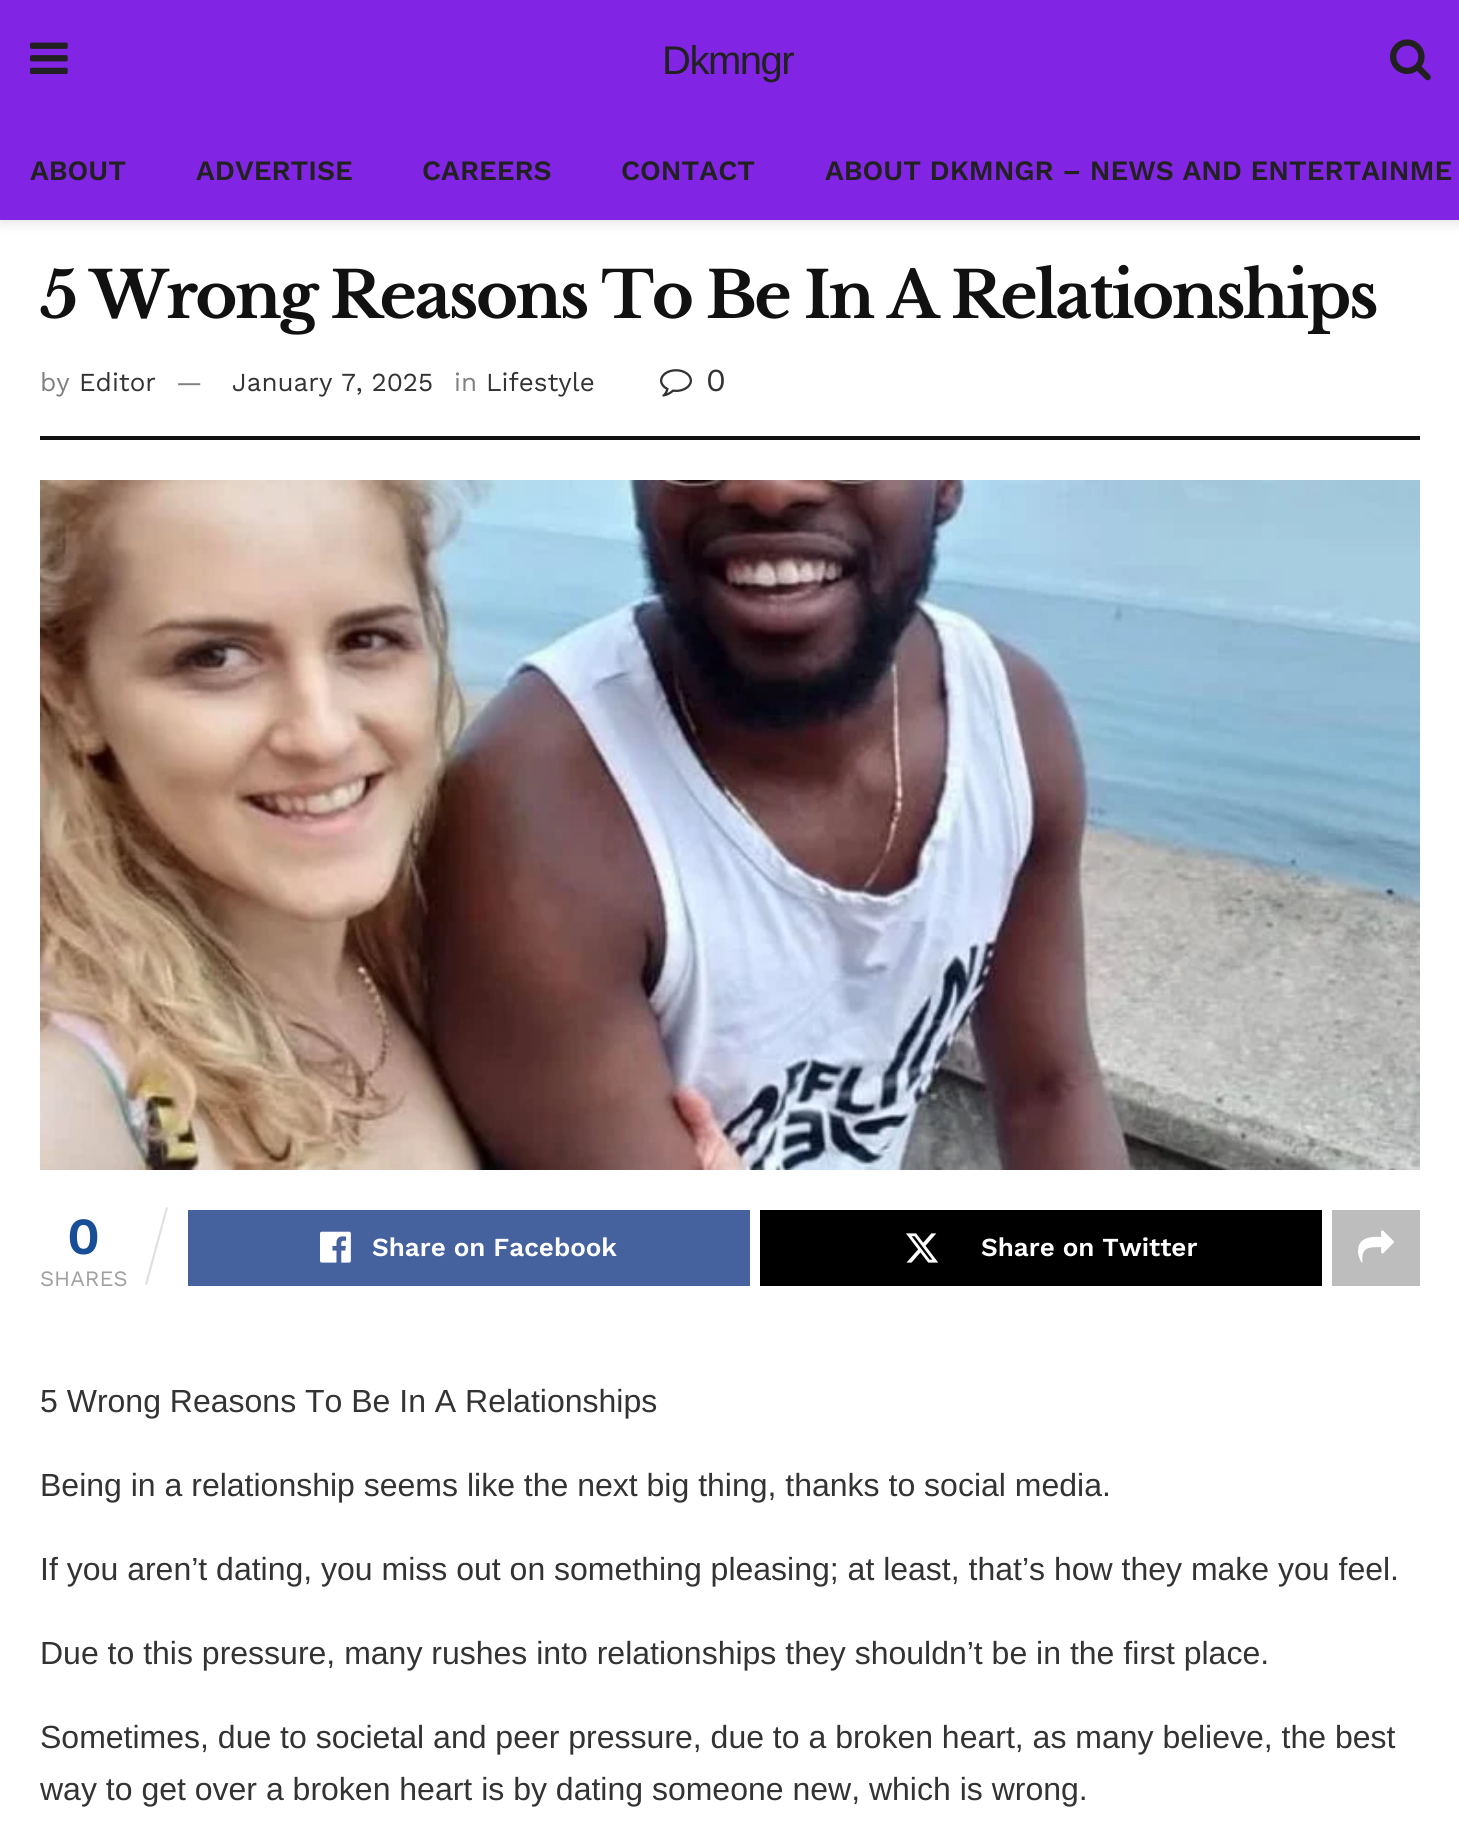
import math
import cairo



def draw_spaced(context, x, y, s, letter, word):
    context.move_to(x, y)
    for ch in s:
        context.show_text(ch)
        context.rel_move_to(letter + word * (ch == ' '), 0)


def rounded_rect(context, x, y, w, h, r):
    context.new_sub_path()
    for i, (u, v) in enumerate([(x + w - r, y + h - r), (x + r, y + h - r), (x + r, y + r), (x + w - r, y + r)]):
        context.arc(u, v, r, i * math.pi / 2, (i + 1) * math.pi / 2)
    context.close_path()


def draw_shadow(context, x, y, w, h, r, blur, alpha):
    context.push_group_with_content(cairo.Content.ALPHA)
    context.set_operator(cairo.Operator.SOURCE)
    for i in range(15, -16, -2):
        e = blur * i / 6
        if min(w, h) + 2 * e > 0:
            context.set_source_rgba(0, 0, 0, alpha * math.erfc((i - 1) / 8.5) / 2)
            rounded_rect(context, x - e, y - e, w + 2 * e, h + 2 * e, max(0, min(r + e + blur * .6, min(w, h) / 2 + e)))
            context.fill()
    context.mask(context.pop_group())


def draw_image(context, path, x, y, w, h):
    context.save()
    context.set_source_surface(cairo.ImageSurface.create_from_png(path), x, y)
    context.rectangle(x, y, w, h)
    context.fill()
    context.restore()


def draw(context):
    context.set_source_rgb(1, 1, 1)
    context.paint()
    context.set_source_rgb(0, 0, 0)
    draw_shadow(context, 0, 4, 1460, 220, 0, 6, 0.1)
    context.set_source_rgb(130 / 255, 36 / 255, 227 / 255)
    context.rectangle(0, 0, 1459, 220)
    context.fill()
    draw_image(context, "images/1.png", 30, 42, 38, 32)
    draw_image(context, "images/2.png", 1390, 39, 41, 42)
    context.set_source_rgb(17 / 255, 17 / 255, 17 / 255)
    context.rectangle(40, 436, 1380, 4)
    context.fill()
    draw_image(context, "images/3.png", 660, 369, 32, 28)
    draw_image(context, "images/4.png", 40, 480, 1380, 690)
    context.set_source_rgb(224 / 255, 224 / 255, 224 / 255)
    context.new_path()
    context.move_to(166, 1207)
    context.line_to(168, 1208)
    context.line_to(147, 1285)
    context.line_to(145, 1284)
    context.close_path()
    context.fill()
    context.set_source_rgb(69 / 255, 98 / 255, 159 / 255)
    context.rectangle(188, 1210, 562, 76)
    context.fill()
    draw_image(context, "images/5.png", 320, 1231, 31, 32)
    context.set_source_rgb(0, 0, 0)
    context.rectangle(760, 1210, 562, 76)
    context.fill()
    draw_image(context, "images/6.png", 906, 1233, 33, 30)
    context.set_source_rgb(189 / 255, 189 / 255, 189 / 255)
    context.rectangle(1332, 1210, 88, 76)
    context.fill()
    draw_image(context, "images/7.png", 1358, 1230, 36, 33)
    context.select_font_face("Liberation Sans")
    context.set_font_size(40)
    context.set_source_rgb(33 / 255, 33 / 255, 33 / 255)
    draw_spaced(context, 662, 74, "Dkmngr", -1.5, 0)
    context.select_font_face("Work Sans SemiBold")
    context.set_font_size(28)
    context.move_to(30, 180)
    context.show_text("ABOUT")
    context.move_to(196, 180)
    context.show_text("ADVERTISE")
    context.move_to(422, 180)
    context.show_text("CAREERS")
    context.move_to(621, 180)
    context.show_text("CONTACT")
    context.move_to(825, 180)
    context.show_text("ABOUT DKMNGR – NEWS AND ENTERTAINME")
    context.select_font_face("Libre Baskerville", cairo.FontSlant.NORMAL, cairo.FontWeight.BOLD)
    context.set_font_size(64)
    context.set_source_rgb(17 / 255, 17 / 255, 17 / 255)
    draw_spaced(context, 40, 318, "5 Wrong Reasons To Be In A Relationships", -2.55, 0)
    context.select_font_face("Work Sans")
    context.set_font_size(26)
    context.set_source_rgb(128 / 255, 128 / 255, 128 / 255)
    context.move_to(40, 391)
    context.show_text("by")
    context.set_source_rgb(51 / 255, 51 / 255, 51 / 255)
    context.move_to(79, 391)
    context.show_text("Editor")
    context.set_source_rgb(128 / 255, 128 / 255, 128 / 255)
    context.move_to(176, 391)
    context.show_text("—")
    context.set_source_rgb(51 / 255, 51 / 255, 51 / 255)
    context.move_to(232, 391)
    context.show_text("January 7, 2025")
    context.set_source_rgb(128 / 255, 128 / 255, 128 / 255)
    context.move_to(454, 391)
    context.show_text("in")
    context.set_source_rgb(51 / 255, 51 / 255, 51 / 255)
    context.move_to(486, 391)
    context.show_text("Lifestyle")
    context.set_font_size(32)
    context.move_to(706, 391)
    context.show_text("0")
    context.select_font_face("Work Sans SemiBold")
    context.set_font_size(52)
    context.set_source_rgb(23 / 255, 78 / 255, 150 / 255)
    context.move_to(67, 1254)
    context.show_text("0")
    context.select_font_face("Work Sans")
    context.set_font_size(22)
    context.set_source_rgb(160 / 255, 160 / 255, 160 / 255)
    context.move_to(40, 1286)
    context.show_text("SHARES")
    context.select_font_face("Work Sans SemiBold")
    context.set_font_size(26)
    context.set_source_rgb(1, 1, 1)
    context.move_to(372, 1256)
    context.show_text("Share on Facebook")
    context.move_to(981, 1256)
    context.show_text("Share on Twitter")
    context.select_font_face("Liberation Sans")
    context.set_font_size(32)
    context.set_source_rgb(51 / 255, 51 / 255, 51 / 255)
    context.move_to(40, 1412)
    context.show_text("5 Wrong Reasons To Be In A Relationships")
    context.move_to(40, 1496)
    context.show_text("Being in a relationship seems like the next big thing, thanks to social media.")
    context.move_to(40, 1580)
    context.show_text("If you aren’t dating, you miss out on something pleasing; at least, that’s how they make you feel.")
    context.move_to(40, 1664)
    context.show_text("Due to this pressure, many rushes into relationships they shouldn’t be in the first place.")
    context.move_to(40, 1748)
    context.show_text("Sometimes, due to societal and peer pressure, due to a broken heart, as many believe, the best")
    context.move_to(40, 1800)
    context.show_text("way to get over a broken heart is by dating someone new, which is wrong.")


surface = cairo.ImageSurface(cairo.Format.RGB24, 1459, 1824)
context = cairo.Context(surface)
options = cairo.FontOptions()
options.set_hint_metrics(cairo.HintMetrics.OFF)
options.set_hint_style(cairo.HintStyle.NONE)
context.set_font_options(options)
context.set_miter_limit(4)
draw(context)
surface.write_to_png("out.png")
